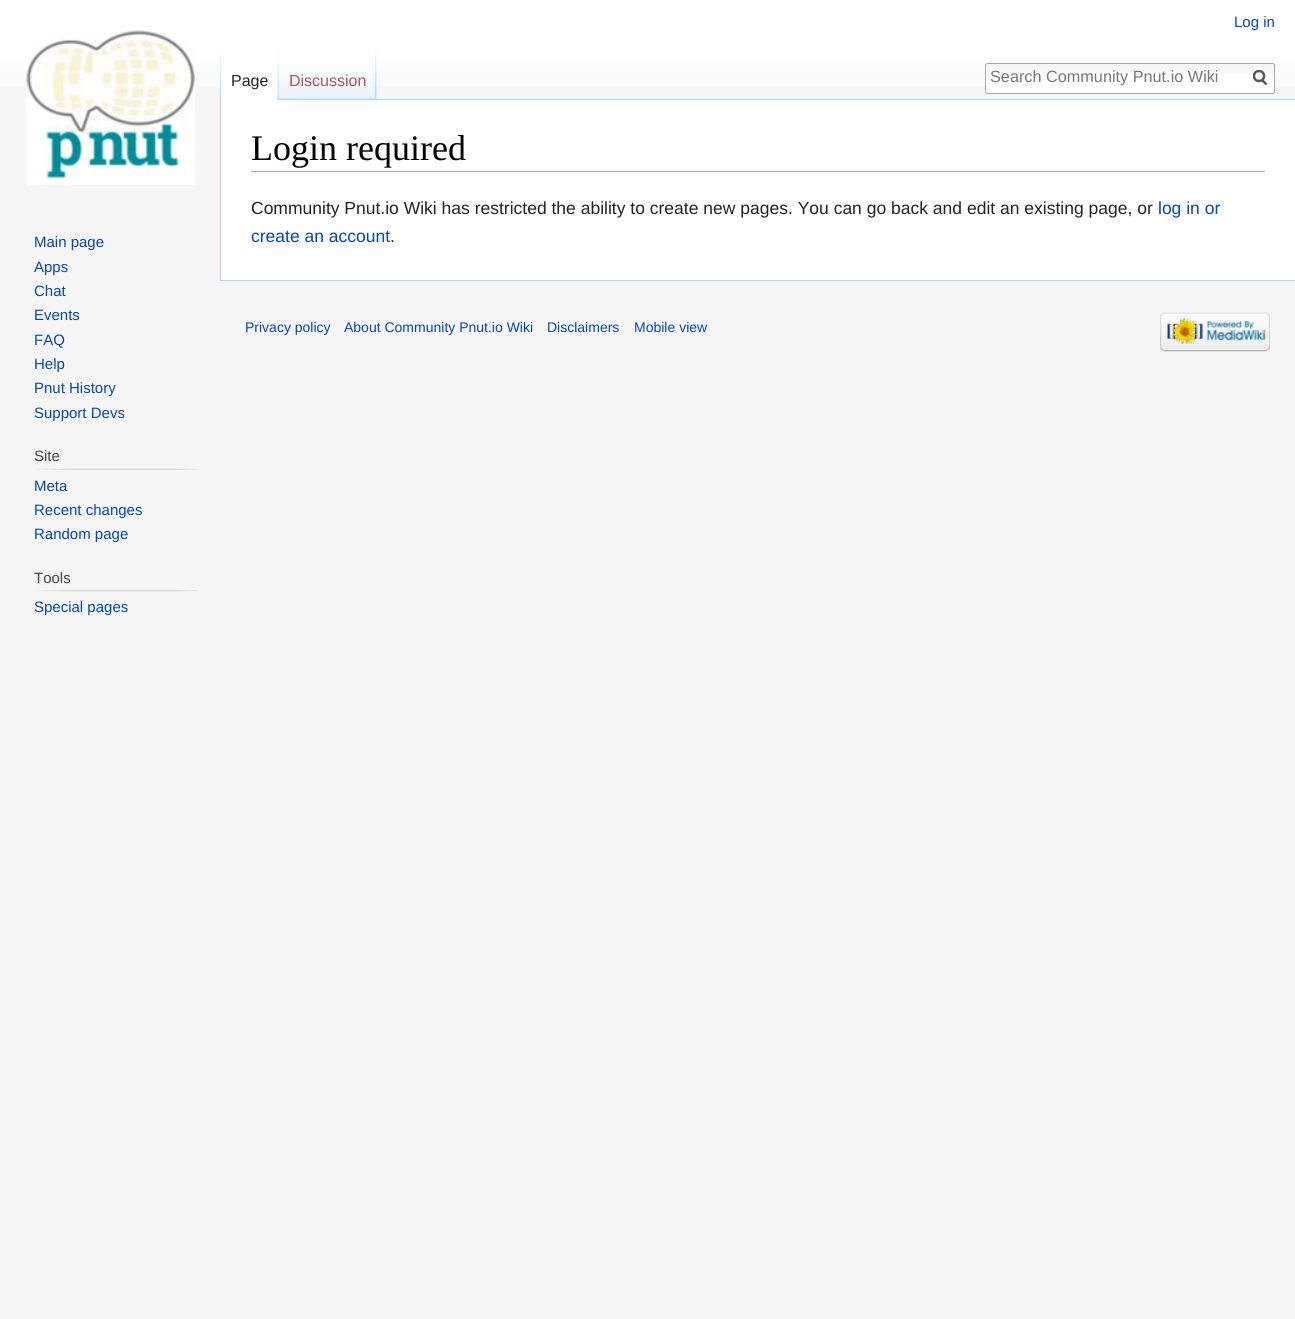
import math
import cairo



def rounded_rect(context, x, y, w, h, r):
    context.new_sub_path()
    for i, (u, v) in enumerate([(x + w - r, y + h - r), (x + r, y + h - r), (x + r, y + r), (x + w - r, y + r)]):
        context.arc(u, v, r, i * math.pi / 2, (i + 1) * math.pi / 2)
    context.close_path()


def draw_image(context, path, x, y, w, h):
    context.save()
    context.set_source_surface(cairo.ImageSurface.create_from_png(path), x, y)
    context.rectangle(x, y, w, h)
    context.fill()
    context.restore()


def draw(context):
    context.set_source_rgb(246 / 255, 246 / 255, 246 / 255)
    context.paint()
    gradient = cairo.LinearGradient(648, 0, 648, 100)
    gradient.add_color_stop_rgba(0.5, 1, 1, 1, 1)
    gradient.add_color_stop_rgba(1, 246 / 255, 246 / 255, 246 / 255, 1)
    context.set_source(gradient)
    context.rectangle(0, 0, 1295, 86)
    context.fill()
    draw_image(context, "images/1.png", 220, 50, 2, 49)
    draw_image(context, "images/2.png", 376, 50, 1, 49)
    context.set_source_rgb(1, 1, 1)
    context.rectangle(221, 58, 58, 42)
    context.fill()
    draw_image(context, "images/3.png", 277, 52, 2, 48)
    draw_image(context, "images/4.png", 278, 50, 98, 50)
    draw_image(context, "images/5.png", 375, 50, 2, 49)
    rounded_rect(context, 985, 63, 290, 31, 2.5)
    context.fill()
    draw_image(context, "images/6.png", 985, 64, 290, 10)
    rounded_rect(context, 985.5, 63.5, 289, 30, 2)
    context.set_source_rgb(162 / 255, 169 / 255, 177 / 255)
    context.set_line_width(1)
    context.stroke()
    context.new_path()
    context.move_to(1266.5, 84.5)
    context.line_to(1261.5, 79.5)
    context.set_source_rgb(84 / 255, 89 / 255, 93 / 255)
    context.set_line_width(2.5)
    context.stroke()
    context.save()
    context.rectangle(1253, 70, 15, 16)
    context.clip()
    context.arc(1259, 76, 5, 0, 2 * math.pi)
    context.stroke()
    context.restore()
    draw_image(context, "images/7.png", 26, 29, 169, 156)
    draw_image(context, "images/8.png", 37, 468, 161, 2)
    draw_image(context, "images/9.png", 37, 590, 161, 2)
    context.set_source_rgb(1, 1, 1)
    context.rectangle(221, 100, 1074, 180)
    context.fill()
    context.set_source_rgb(167 / 255, 215 / 255, 249 / 255)
    context.rectangle(376, 99, 919, 1)
    context.fill()
    context.rectangle(220, 280, 1075, 1)
    context.fill()
    context.rectangle(220, 99, 1, 182)
    context.fill()
    context.set_source_rgb(162 / 255, 169 / 255, 177 / 255)
    context.rectangle(251, 171, 1014, 1)
    context.fill()
    draw_image(context, "images/10.png", 1160, 312, 110, 40)
    context.select_font_face("Liberation Sans")
    context.set_font_size(15)
    context.set_source_rgb(6 / 255, 69 / 255, 173 / 255)
    context.move_to(1234, 27)
    context.show_text("Log in")
    context.set_font_size(16)
    context.set_source_rgb(34 / 255, 34 / 255, 34 / 255)
    context.move_to(231, 86)
    context.show_text("Page")
    context.set_source_rgb(165 / 255, 88 / 255, 88 / 255)
    context.move_to(289, 86)
    context.show_text("Discussion")
    context.set_font_size(16.25)
    context.set_source_rgb(114 / 255, 119 / 255, 125 / 255)
    context.move_to(990, 82)
    context.show_text("Search Community Pnut.io Wiki")
    context.set_font_size(15)
    context.set_source_rgb(6 / 255, 69 / 255, 173 / 255)
    context.move_to(34, 247)
    context.show_text("Main page")
    context.move_to(34, 272)
    context.show_text("Apps")
    context.move_to(34, 296)
    context.show_text("Chat")
    context.move_to(34, 320)
    context.show_text("Events")
    context.move_to(34, 345)
    context.show_text("FAQ")
    context.move_to(34, 369)
    context.show_text("Help")
    context.move_to(34, 393)
    context.show_text("Pnut History")
    context.move_to(34, 418)
    context.show_text("Support Devs")
    context.set_source_rgb(68 / 255, 68 / 255, 68 / 255)
    context.move_to(34, 461)
    context.show_text("Site")
    context.set_source_rgb(6 / 255, 69 / 255, 173 / 255)
    context.move_to(34, 491)
    context.show_text("Meta")
    context.move_to(34, 515)
    context.show_text("Recent changes")
    context.move_to(34, 539)
    context.show_text("Random page")
    context.set_source_rgb(68 / 255, 68 / 255, 68 / 255)
    context.move_to(34, 583)
    context.show_text("Tools")
    context.set_source_rgb(6 / 255, 69 / 255, 173 / 255)
    context.move_to(34, 612)
    context.show_text("Special pages")
    context.select_font_face("Liberation Serif")
    context.set_font_size(36)
    context.set_source_rgb(0, 0, 0)
    context.move_to(251, 160)
    context.show_text("Login required")
    context.select_font_face("Liberation Sans")
    context.set_font_size(17.5)
    context.set_source_rgb(34 / 255, 34 / 255, 34 / 255)
    context.move_to(251, 214)
    context.show_text("Community Pnut.io Wiki has restricted the ability to create new pages. You can go back and edit an existing page, or")
    context.set_source_rgb(6 / 255, 69 / 255, 173 / 255)
    context.move_to(1158, 214)
    context.show_text("log in or")
    context.move_to(251, 242)
    context.show_text("create an account")
    context.set_source_rgb(34 / 255, 34 / 255, 34 / 255)
    context.move_to(390, 242)
    context.show_text(".")
    context.set_font_size(14)
    context.set_source_rgb(6 / 255, 69 / 255, 173 / 255)
    context.move_to(245, 332)
    context.show_text("Privacy policy")
    context.move_to(344, 332)
    context.show_text("About Community Pnut.io Wiki")
    context.move_to(547, 332)
    context.show_text("Disclaimers")
    context.move_to(634, 332)
    context.show_text("Mobile view")


surface = cairo.ImageSurface(cairo.Format.RGB24, 1295, 1319)
context = cairo.Context(surface)
options = cairo.FontOptions()
options.set_hint_metrics(cairo.HintMetrics.OFF)
options.set_hint_style(cairo.HintStyle.NONE)
context.set_font_options(options)
context.set_miter_limit(4)
draw(context)
surface.write_to_png("out.png")
